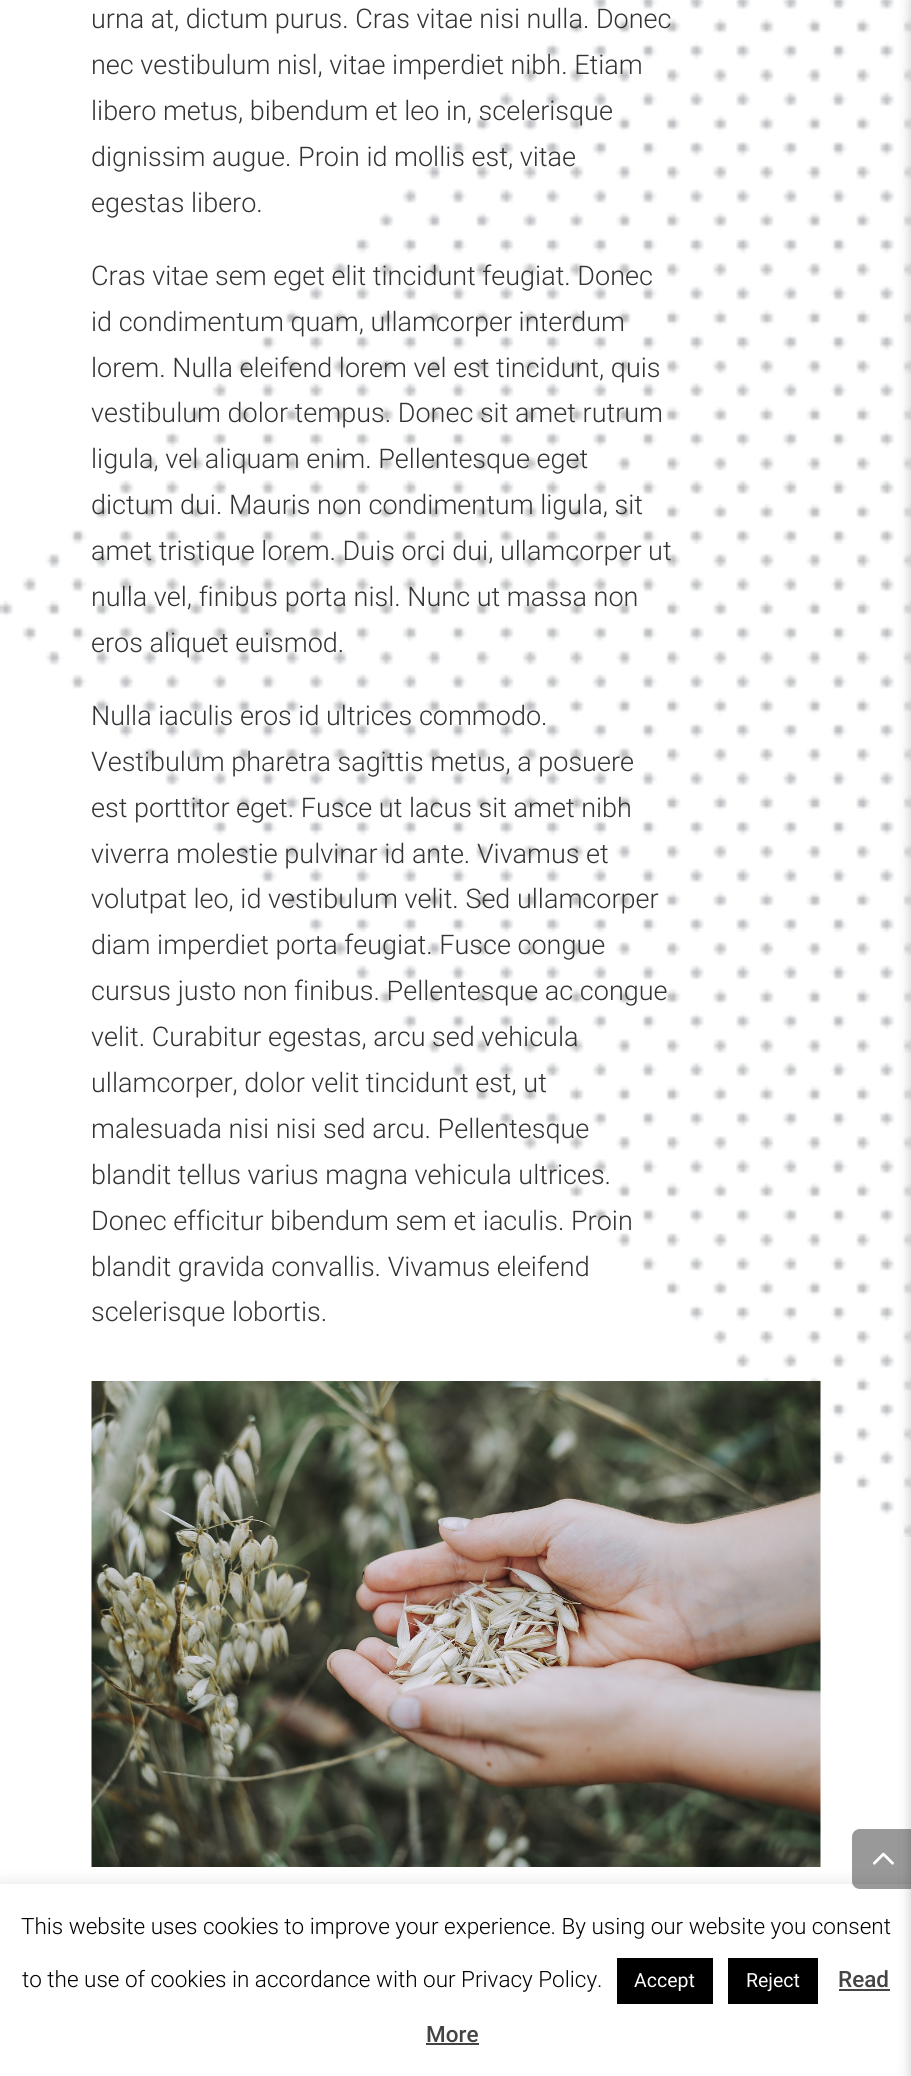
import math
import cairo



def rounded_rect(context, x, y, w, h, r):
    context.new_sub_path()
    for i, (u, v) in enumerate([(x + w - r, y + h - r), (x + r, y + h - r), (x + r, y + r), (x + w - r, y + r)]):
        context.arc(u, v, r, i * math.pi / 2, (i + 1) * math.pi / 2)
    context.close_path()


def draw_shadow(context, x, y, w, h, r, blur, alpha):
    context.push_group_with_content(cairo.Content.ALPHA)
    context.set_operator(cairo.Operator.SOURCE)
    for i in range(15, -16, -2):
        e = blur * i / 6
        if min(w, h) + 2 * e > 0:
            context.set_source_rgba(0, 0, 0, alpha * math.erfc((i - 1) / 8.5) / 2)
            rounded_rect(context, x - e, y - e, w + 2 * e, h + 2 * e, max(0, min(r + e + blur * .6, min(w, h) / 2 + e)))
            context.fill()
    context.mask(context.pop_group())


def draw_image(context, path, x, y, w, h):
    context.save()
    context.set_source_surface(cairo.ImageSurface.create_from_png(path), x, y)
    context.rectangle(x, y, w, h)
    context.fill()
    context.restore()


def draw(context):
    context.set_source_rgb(1, 1, 1)
    context.paint()
    draw_image(context, "images/1.png", 0, 0, 911, 1537)
    draw_image(context, "images/2.png", 91, 1381, 730, 486)
    context.set_source_rgb(172 / 255, 171 / 255, 171 / 255)
    draw_shadow(context, 0, 1883, 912, 192, 0, 7.5, 0.3)
    context.set_source_rgb(1, 1, 1)
    context.rectangle(0, 1884, 911, 192)
    context.fill()
    context.set_source_rgba(0, 0, 0, 0.4)
    context.new_path()
    context.move_to(860, 1829)
    context.line_to(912, 1829)
    context.line_to(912, 1889)
    context.line_to(860, 1889)
    context.curve_to(855.5, 1889, 852, 1885.5, 852, 1881)
    context.line_to(852, 1837)
    context.curve_to(852, 1832.5, 855.5, 1829, 860, 1829)
    context.close_path()
    context.fill()
    draw_image(context, "images/3.png", 872, 1852, 22, 13)
    context.set_source_rgb(68 / 255, 68 / 255, 68 / 255)
    context.rectangle(839, 1989, 51, 2)
    context.fill()
    context.set_source_rgb(0, 0, 0)
    draw_shadow(context, 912, 0, 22, 2076, 0, 7.5, 0.12)
    draw_shadow(context, 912, 0, 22, 2076, 0, 7.5, 0.12)
    context.set_source_rgb(0, 0, 0)
    context.rectangle(617, 1958, 96, 46)
    context.fill()
    context.rectangle(728, 1958, 90, 46)
    context.fill()
    context.set_source_rgb(68 / 255, 68 / 255, 68 / 255)
    context.rectangle(426, 2043, 53, 2)
    context.fill()
    context.select_font_face("Roboto Light")
    context.set_font_size(27)
    context.set_source_rgb(52 / 255, 52 / 255, 52 / 255)
    context.move_to(91, 28)
    context.show_text("urna at, dictum purus. Cras vitae nisi nulla. Donec")
    context.move_to(91, 74)
    context.show_text("nec vestibulum nisl, vitae imperdiet nibh. Etiam")
    context.move_to(91, 120)
    context.show_text("libero metus, bibendum et leo in, scelerisque")
    context.move_to(91, 166)
    context.show_text("dignissim augue. Proin id mollis est, vitae")
    context.move_to(91, 212)
    context.show_text("egestas libero.")
    context.move_to(91, 285)
    context.show_text("Cras vitae sem eget elit tincidunt feugiat. Donec")
    context.move_to(91, 331)
    context.show_text("id condimentum quam, ullamcorper interdum")
    context.move_to(91, 377)
    context.show_text("lorem. Nulla eleifend lorem vel est tincidunt, quis")
    context.move_to(91, 422)
    context.show_text("vestibulum dolor tempus. Donec sit amet rutrum")
    context.move_to(91, 468)
    context.show_text("ligula, vel aliquam enim. Pellentesque eget")
    context.move_to(91, 514)
    context.show_text("dictum dui. Mauris non condimentum ligula, sit")
    context.move_to(91, 560)
    context.show_text("amet tristique lorem. Duis orci dui, ullamcorper ut")
    context.move_to(91, 606)
    context.show_text("nulla vel, finibus porta nisl. Nunc ut massa non")
    context.move_to(91, 652)
    context.show_text("eros aliquet euismod.")
    context.move_to(91, 725)
    context.show_text("Nulla iaculis eros id ultrices commodo.")
    context.move_to(91, 771)
    context.show_text("Vestibulum pharetra sagittis metus, a posuere")
    context.move_to(91, 817)
    context.show_text("est porttitor eget. Fusce ut lacus sit amet nibh")
    context.move_to(91, 863)
    context.show_text("viverra molestie pulvinar id ante. Vivamus et")
    context.move_to(91, 908)
    context.show_text("volutpat leo, id vestibulum velit. Sed ullamcorper")
    context.move_to(91, 954)
    context.show_text("diam imperdiet porta feugiat. Fusce congue")
    context.move_to(91, 1000)
    context.show_text("cursus justo non finibus. Pellentesque ac congue")
    context.move_to(91, 1046)
    context.show_text("velit. Curabitur egestas, arcu sed vehicula")
    context.move_to(91, 1092)
    context.show_text("ullamcorper, dolor velit tincidunt est, ut")
    context.move_to(91, 1138)
    context.show_text("malesuada nisi nisi sed arcu. Pellentesque")
    context.move_to(91, 1184)
    context.show_text("blandit tellus varius magna vehicula ultrices.")
    context.move_to(91, 1230)
    context.show_text("Donec efficitur bibendum sem et iaculis. Proin")
    context.move_to(91, 1276)
    context.show_text("blandit gravida convallis. Vivamus eleifend")
    context.move_to(91, 1321)
    context.show_text("scelerisque lobortis.")
    context.set_font_size(22.5)
    context.set_source_rgb(0, 0, 0)
    context.move_to(21, 1934)
    context.show_text("This website uses cookies to improve your experience. By using our website you consent")
    context.move_to(22, 1987)
    context.show_text("to the use of cookies in accordance with our Privacy Policy.")
    context.select_font_face("Roboto")
    context.set_font_size(19.5)
    context.set_source_rgb(1, 1, 1)
    context.move_to(634, 1987)
    context.show_text("Accept")
    context.move_to(746, 1987)
    context.show_text("Reject")
    context.select_font_face("Roboto Medium")
    context.set_font_size(22.5)
    context.set_source_rgb(68 / 255, 68 / 255, 68 / 255)
    context.move_to(838, 1987)
    context.show_text("Read")
    context.move_to(426, 2042)
    context.show_text("More")


surface = cairo.ImageSurface(cairo.Format.RGB24, 911, 2076)
context = cairo.Context(surface)
options = cairo.FontOptions()
options.set_hint_metrics(cairo.HintMetrics.OFF)
options.set_hint_style(cairo.HintStyle.NONE)
context.set_font_options(options)
context.set_miter_limit(4)
draw(context)
surface.write_to_png("out.png")
